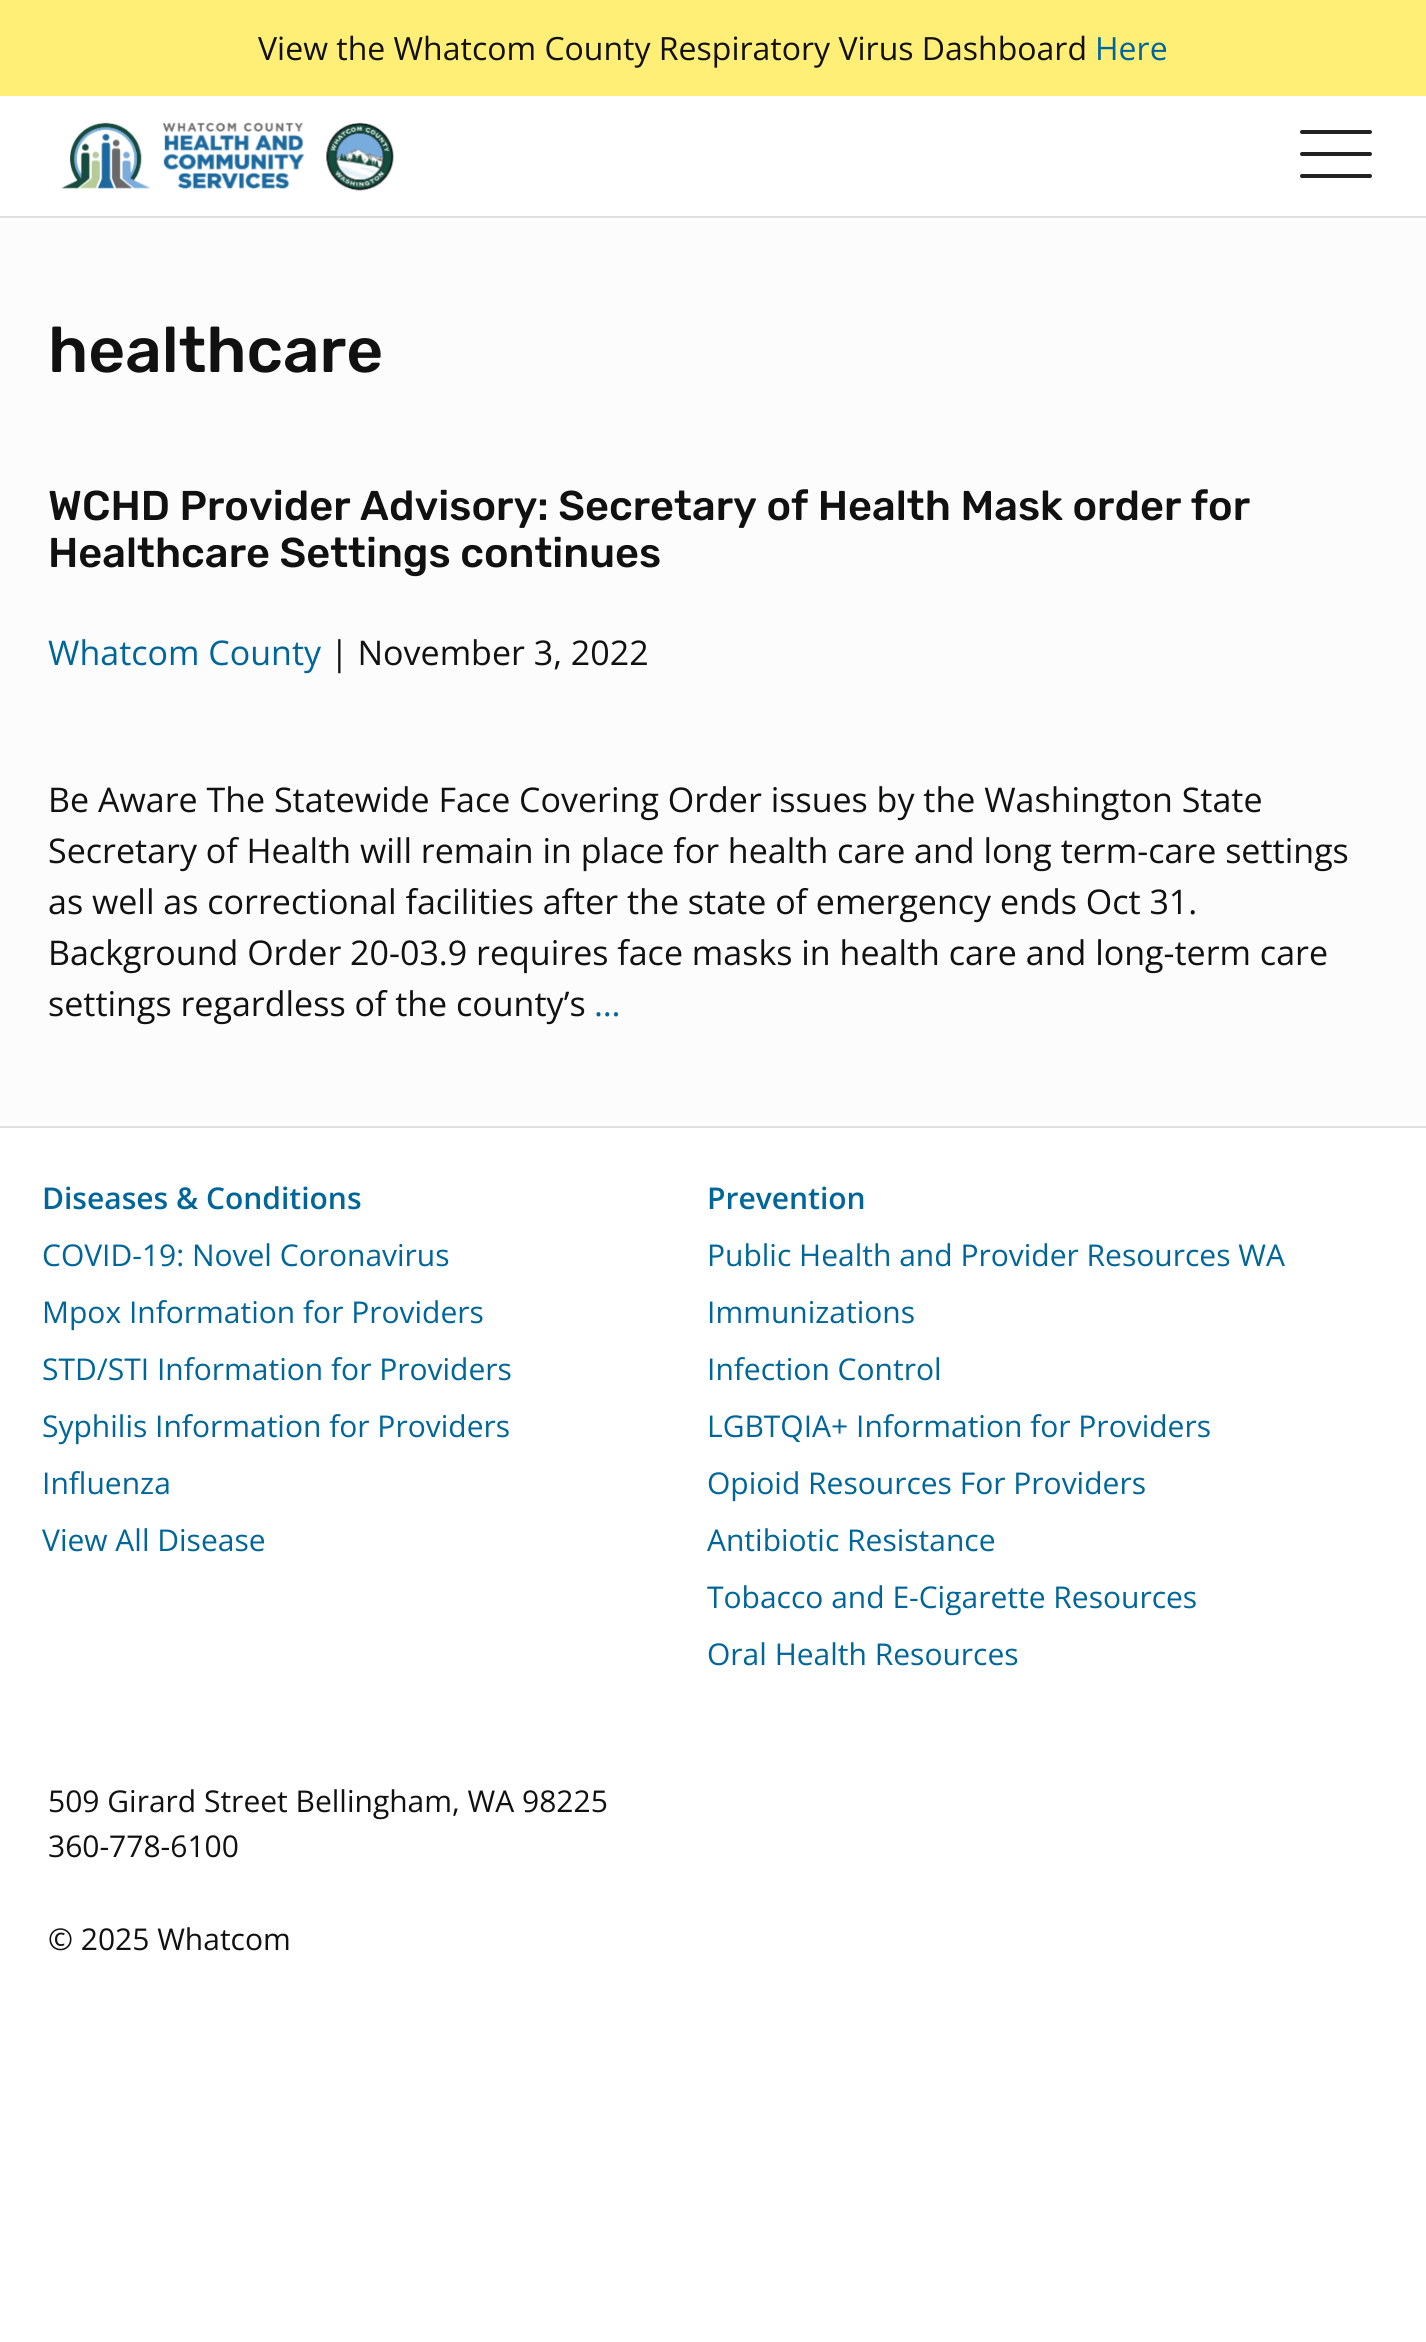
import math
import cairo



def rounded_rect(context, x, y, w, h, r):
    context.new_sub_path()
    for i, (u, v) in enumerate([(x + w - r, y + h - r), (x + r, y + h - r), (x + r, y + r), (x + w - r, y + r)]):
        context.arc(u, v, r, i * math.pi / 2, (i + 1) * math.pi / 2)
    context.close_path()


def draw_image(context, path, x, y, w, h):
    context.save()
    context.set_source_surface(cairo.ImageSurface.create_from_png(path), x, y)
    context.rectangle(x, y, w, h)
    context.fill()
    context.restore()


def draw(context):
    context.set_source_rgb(1, 1, 1)
    context.paint()
    context.set_source_rgb(223 / 255, 223 / 255, 223 / 255)
    context.rectangle(0, 216, 1426, 2)
    context.fill()
    context.set_source_rgb(1, 239 / 255, 119 / 255)
    context.rectangle(0, 0, 1426, 96)
    context.fill()
    draw_image(context, "images/1.png", 62, 122, 332, 69)
    context.set_source_rgb(34 / 255, 34 / 255, 34 / 255)
    rounded_rect(context, 1300, 130, 72, 4, 2)
    context.fill()
    rounded_rect(context, 1300, 152, 72, 4, 2)
    context.fill()
    rounded_rect(context, 1300, 174, 72, 4, 2)
    context.fill()
    context.set_source_rgb(252 / 255, 252 / 255, 252 / 255)
    context.rectangle(0, 218, 1426, 908)
    context.fill()
    context.set_source_rgb(223 / 255, 223 / 255, 223 / 255)
    context.rectangle(0, 1126, 1426, 2)
    context.fill()
    context.select_font_face("Open Sans")
    context.set_font_size(32)
    context.set_source_rgb(17 / 255, 17 / 255, 17 / 255)
    context.move_to(258, 60)
    context.show_text("View the Whatcom County Respiratory Virus Dashboard")
    context.set_source_rgb(0, 102 / 255, 153 / 255)
    context.move_to(1095, 60)
    context.show_text("Here")
    context.select_font_face("Rubik Medium")
    context.set_font_size(64)
    context.set_source_rgb(17 / 255, 17 / 255, 17 / 255)
    context.move_to(48, 372)
    context.show_text("healthcare")
    context.set_font_size(41.6)
    context.move_to(48, 520)
    context.show_text("WCHD Provider Advisory: Secretary of Health Mask order for")
    context.move_to(48, 567)
    context.show_text("Healthcare Settings continues")
    context.select_font_face("Open Sans")
    context.set_font_size(34)
    context.set_source_rgb(0, 102 / 255, 153 / 255)
    context.move_to(48, 665)
    context.show_text("Whatcom County")
    context.set_source_rgb(17 / 255, 17 / 255, 17 / 255)
    context.move_to(330, 665)
    context.show_text("| November 3, 2022")
    context.move_to(48, 812)
    context.show_text("Be Aware The Statewide Face Covering Order issues by the Washington State")
    context.move_to(48, 863)
    context.show_text("Secretary of Health will remain in place for health care and long term-care settings")
    context.move_to(48, 914)
    context.show_text("as well as correctional facilities after the state of emergency ends Oct 31.")
    context.move_to(48, 965)
    context.show_text("Background Order 20-03.9 requires face masks in health care and long-term care")
    context.move_to(48, 1016)
    context.show_text("settings regardless of the county’s")
    context.set_source_rgb(0, 102 / 255, 153 / 255)
    context.move_to(594, 1016)
    context.show_text("…")
    context.select_font_face("Open Sans SemiBold")
    context.set_font_size(30)
    context.move_to(42, 1209)
    context.show_text("Diseases & Conditions")
    context.select_font_face("Open Sans")
    context.move_to(42, 1266)
    context.show_text("COVID-19: Novel Coronavirus")
    context.move_to(42, 1323)
    context.show_text("Mpox Information for Providers")
    context.move_to(42, 1380)
    context.show_text("STD/STI Information for Providers")
    context.move_to(42, 1437)
    context.show_text("Syphilis Information for Providers")
    context.move_to(42, 1494)
    context.show_text("Influenza")
    context.move_to(42, 1551)
    context.show_text("View All Disease")
    context.select_font_face("Open Sans SemiBold")
    context.move_to(707, 1209)
    context.show_text("Prevention")
    context.select_font_face("Open Sans")
    context.move_to(707, 1266)
    context.show_text("Public Health and Provider Resources WA")
    context.move_to(707, 1323)
    context.show_text("Immunizations")
    context.move_to(707, 1380)
    context.show_text("Infection Control")
    context.move_to(707, 1437)
    context.show_text("LGBTQIA+ Information for Providers")
    context.move_to(707, 1494)
    context.show_text("Opioid Resources For Providers")
    context.move_to(707, 1551)
    context.show_text("Antibiotic Resistance")
    context.move_to(707, 1608)
    context.show_text("Tobacco and E-Cigarette Resources")
    context.move_to(707, 1665)
    context.show_text("Oral Health Resources")
    context.set_source_rgb(17 / 255, 17 / 255, 17 / 255)
    context.move_to(48, 1812)
    context.show_text("509 Girard Street Bellingham, WA 98225")
    context.move_to(48, 1857)
    context.show_text("360-778-6100")
    context.move_to(48, 1950)
    context.show_text("© 2025 Whatcom")


surface = cairo.ImageSurface(cairo.Format.RGB24, 1426, 2342)
context = cairo.Context(surface)
options = cairo.FontOptions()
options.set_hint_metrics(cairo.HintMetrics.OFF)
options.set_hint_style(cairo.HintStyle.NONE)
context.set_font_options(options)
context.set_miter_limit(4)
draw(context)
surface.write_to_png("out.png")
